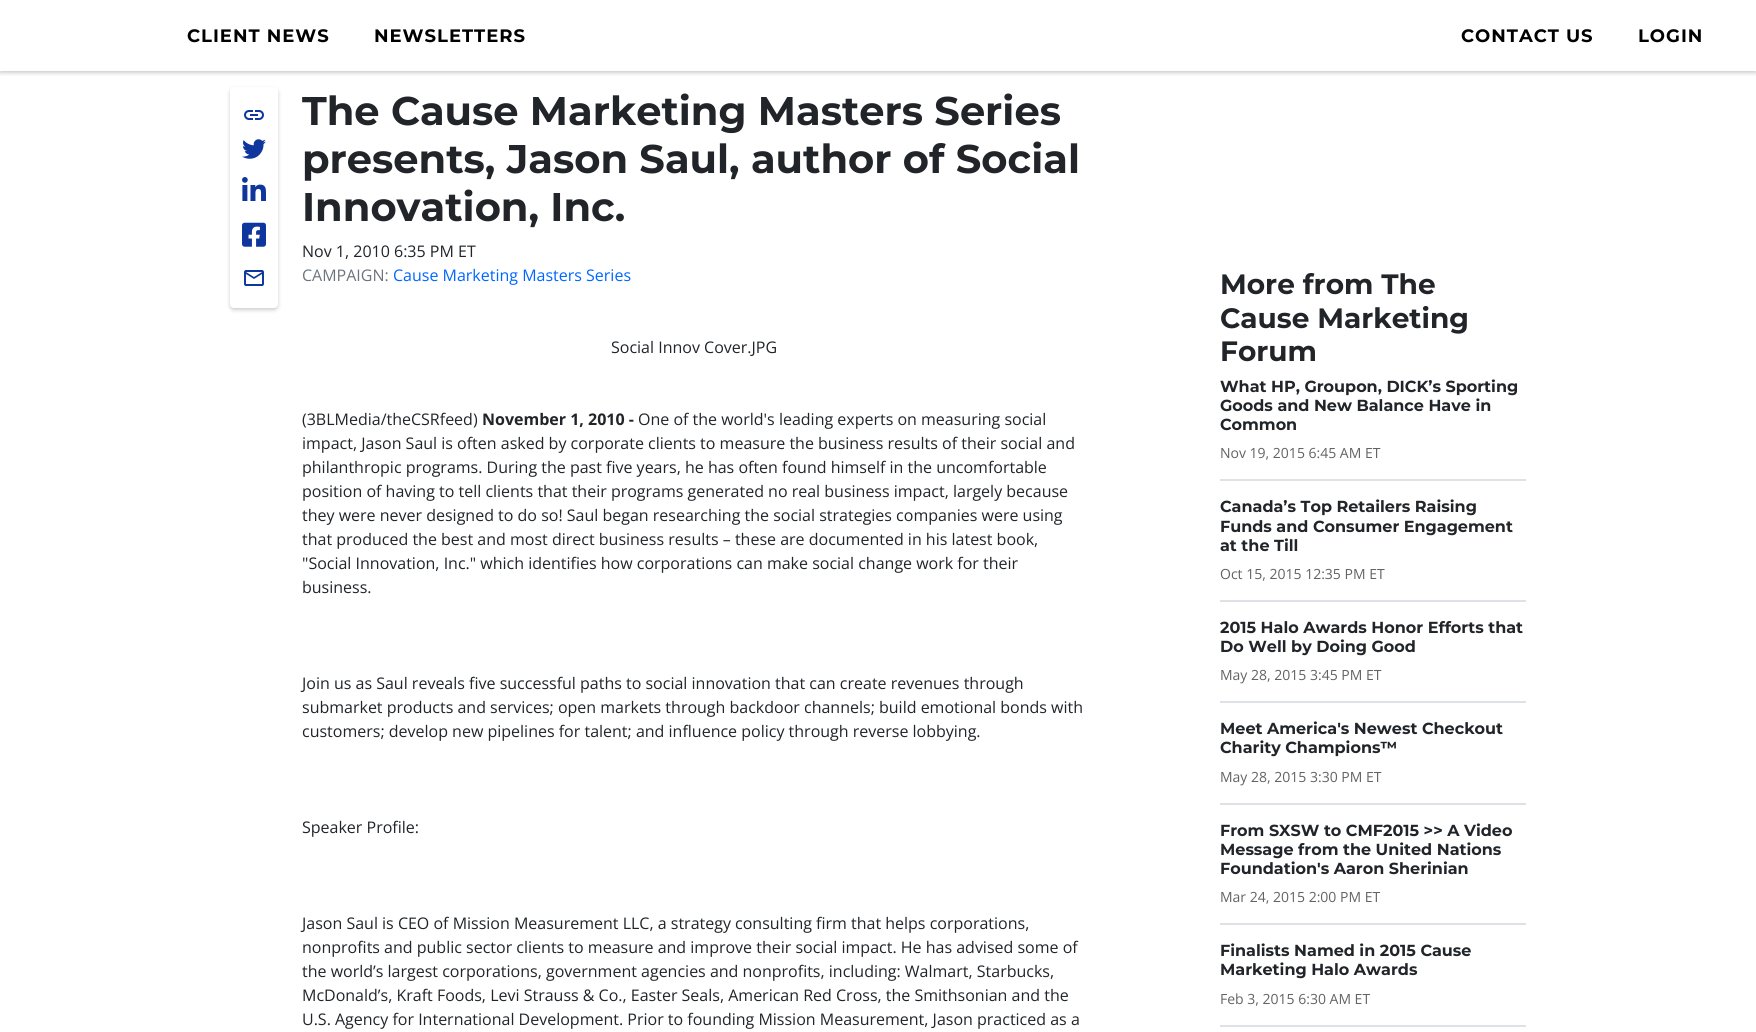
import math
import cairo



def draw_spaced(context, x, y, s, letter, word):
    context.move_to(x, y)
    for ch in s:
        context.show_text(ch)
        context.rel_move_to(letter + word * (ch == ' '), 0)


def rounded_rect(context, x, y, w, h, r):
    context.new_sub_path()
    for i, (u, v) in enumerate([(x + w - r, y + h - r), (x + r, y + h - r), (x + r, y + r), (x + w - r, y + r)]):
        context.arc(u, v, r, i * math.pi / 2, (i + 1) * math.pi / 2)
    context.close_path()


def draw_shadow(context, x, y, w, h, r, blur, alpha):
    context.push_group_with_content(cairo.Content.ALPHA)
    context.set_operator(cairo.Operator.SOURCE)
    for i in range(15, -16, -2):
        e = blur * i / 6
        if min(w, h) + 2 * e > 0:
            context.set_source_rgba(0, 0, 0, alpha * math.erfc((i - 1) / 8.5) / 2)
            rounded_rect(context, x - e, y - e, w + 2 * e, h + 2 * e, max(0, min(r + e + blur * .6, min(w, h) / 2 + e)))
            context.fill()
    context.mask(context.pop_group())


def draw_image(context, path, x, y, w, h):
    context.save()
    context.set_source_surface(cairo.ImageSurface.create_from_png(path), x, y)
    context.rectangle(x, y, w, h)
    context.fill()
    context.restore()


def draw(context):
    context.set_source_rgb(1, 1, 1)
    context.paint()
    context.save()
    context.rectangle(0, 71, 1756, 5)
    context.clip()
    context.set_source_rgb(0, 0, 0)
    draw_shadow(context, 0, 2, 1756, 71, 0, 2, 0.2)
    context.restore()
    context.save()
    context.set_fill_rule(cairo.FillRule.EVEN_ODD)
    context.new_path()
    context.move_to(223, 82)
    context.line_to(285, 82)
    context.line_to(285, 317)
    context.line_to(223, 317)
    context.close_path()
    context.move_to(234, 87)
    context.line_to(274, 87)
    context.curve_to(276, 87, 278, 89, 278, 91)
    context.line_to(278, 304)
    context.curve_to(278, 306, 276, 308, 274, 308)
    context.line_to(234, 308)
    context.curve_to(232, 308, 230, 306, 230, 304)
    context.line_to(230, 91)
    context.curve_to(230, 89, 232, 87, 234, 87)
    context.close_path()
    context.clip()
    context.set_source_rgb(0, 0, 0)
    draw_shadow(context, 230, 89, 48, 221, 4, 2, 0.2)
    context.restore()
    draw_image(context, "images/1.png", 244, 110, 20, 10)
    draw_image(context, "images/2.png", 242, 139, 24, 20)
    draw_image(context, "images/3.png", 242, 177, 24, 24)
    draw_image(context, "images/4.png", 242, 222, 24, 25)
    draw_image(context, "images/5.png", 244, 270, 20, 16)
    context.set_source_rgb(222 / 255, 226 / 255, 230 / 255)
    context.rectangle(1220, 479, 306, 2)
    context.fill()
    context.rectangle(1220, 600, 306, 2)
    context.fill()
    context.rectangle(1220, 701, 306, 2)
    context.fill()
    context.rectangle(1220, 803, 306, 2)
    context.fill()
    context.rectangle(1220, 923, 306, 2)
    context.fill()
    context.rectangle(1220, 1025, 306, 2)
    context.fill()
    context.select_font_face("Montserrat", cairo.FontSlant.NORMAL, cairo.FontWeight.BOLD)
    context.set_font_size(18)
    context.set_source_rgb(0, 0, 0)
    draw_spaced(context, 187, 42, "CLIENT NEWS", 1, 0)
    draw_spaced(context, 374, 42, "NEWSLETTERS", 1, 0)
    draw_spaced(context, 1461, 42, "CONTACT US", 1, 0)
    draw_spaced(context, 1638, 42, "LOGIN", 1, 0)
    context.set_font_size(40)
    context.set_source_rgb(33 / 255, 37 / 255, 41 / 255)
    context.move_to(302, 125)
    context.show_text("The Cause Marketing Masters Series")
    context.move_to(302, 173)
    context.show_text("presents, Jason Saul, author of Social")
    context.move_to(302, 221)
    context.show_text("Innovation, Inc.")
    context.select_font_face("Open Sans")
    context.set_font_size(16)
    context.move_to(302, 257)
    context.show_text("Nov 1, 2010 6:35 PM ET")
    context.set_source_rgb(108 / 255, 117 / 255, 125 / 255)
    context.move_to(302, 281)
    context.show_text("CAMPAIGN:")
    context.set_source_rgb(0, 102 / 255, 1)
    context.move_to(393, 281)
    context.show_text("Cause Marketing Masters Series")
    context.set_source_rgb(33 / 255, 37 / 255, 41 / 255)
    context.move_to(611, 353)
    context.show_text("Social Innov Cover.JPG")
    context.move_to(302, 425)
    context.show_text("(3BLMedia/theCSRfeed)")
    context.select_font_face("Open Sans", cairo.FontSlant.NORMAL, cairo.FontWeight.BOLD)
    context.move_to(482, 425)
    context.show_text("November 1, 2010 -")
    context.select_font_face("Open Sans")
    context.move_to(638, 425)
    context.show_text("One of the world's leading experts on measuring social")
    context.move_to(302, 449)
    context.show_text("impact, Jason Saul is often asked by corporate clients to measure the business results of their social and")
    context.move_to(302, 473)
    context.show_text("philanthropic programs. During the past five years, he has often found himself in the uncomfortable")
    context.move_to(302, 497)
    context.show_text("position of having to tell clients that their programs generated no real business impact, largely because")
    context.move_to(302, 521)
    context.show_text("they were never designed to do so! Saul began researching the social strategies companies were using")
    context.move_to(302, 545)
    context.show_text("that produced the best and most direct business results – these are documented in his latest book,")
    context.move_to(302, 569)
    context.show_text("\"Social Innovation, Inc.\" which identifies how corporations can make social change work for their")
    context.move_to(302, 593)
    context.show_text("business.")
    context.move_to(302, 689)
    context.show_text("Join us as Saul reveals five successful paths to social innovation that can create revenues through")
    context.move_to(302, 713)
    context.show_text("submarket products and services; open markets through backdoor channels; build emotional bonds with")
    context.move_to(302, 737)
    context.show_text("customers; develop new pipelines for talent; and influence policy through reverse lobbying.")
    context.move_to(302, 833)
    context.show_text("Speaker Profile:")
    context.move_to(302, 929)
    context.show_text("Jason Saul is CEO of Mission Measurement LLC, a strategy consulting firm that helps corporations,")
    context.move_to(302, 953)
    context.show_text("nonprofits and public sector clients to measure and improve their social impact. He has advised some of")
    context.move_to(302, 977)
    context.show_text("the world’s largest corporations, government agencies and nonprofits, including: Walmart, Starbucks,")
    context.move_to(302, 1001)
    context.show_text("McDonald’s, Kraft Foods, Levi Strauss & Co., Easter Seals, American Red Cross, the Smithsonian and the")
    context.move_to(302, 1025)
    context.show_text("U.S. Agency for International Development. Prior to founding Mission Measurement, Jason practiced as a")
    context.select_font_face("Montserrat", cairo.FontSlant.NORMAL, cairo.FontWeight.BOLD)
    context.set_font_size(28)
    context.move_to(1220, 294)
    context.show_text("More from The")
    context.move_to(1220, 328)
    context.show_text("Cause Marketing")
    context.move_to(1220, 361)
    context.show_text("Forum")
    context.set_font_size(16)
    context.move_to(1220, 392)
    context.show_text("What HP, Groupon, DICK’s Sporting")
    context.move_to(1220, 411)
    context.show_text("Goods and New Balance Have in")
    context.move_to(1220, 430)
    context.show_text("Common")
    context.select_font_face("Open Sans")
    context.set_font_size(14)
    context.set_source_rgb(99 / 255, 99 / 255, 99 / 255)
    context.move_to(1220, 458)
    context.show_text("Nov 19, 2015 6:45 AM ET")
    context.select_font_face("Montserrat", cairo.FontSlant.NORMAL, cairo.FontWeight.BOLD)
    context.set_font_size(16)
    context.set_source_rgb(33 / 255, 37 / 255, 41 / 255)
    context.move_to(1220, 512)
    context.show_text("Canada’s Top Retailers Raising")
    context.move_to(1220, 532)
    context.show_text("Funds and Consumer Engagement")
    context.move_to(1220, 551)
    context.show_text("at the Till")
    context.select_font_face("Open Sans")
    context.set_font_size(14)
    context.set_source_rgb(99 / 255, 99 / 255, 99 / 255)
    context.move_to(1220, 579)
    context.show_text("Oct 15, 2015 12:35 PM ET")
    context.select_font_face("Montserrat", cairo.FontSlant.NORMAL, cairo.FontWeight.BOLD)
    context.set_font_size(16)
    context.set_source_rgb(33 / 255, 37 / 255, 41 / 255)
    context.move_to(1220, 633)
    context.show_text("2015 Halo Awards Honor Efforts that")
    context.move_to(1220, 652)
    context.show_text("Do Well by Doing Good")
    context.select_font_face("Open Sans")
    context.set_font_size(14)
    context.set_source_rgb(99 / 255, 99 / 255, 99 / 255)
    context.move_to(1220, 680)
    context.show_text("May 28, 2015 3:45 PM ET")
    context.select_font_face("Montserrat", cairo.FontSlant.NORMAL, cairo.FontWeight.BOLD)
    context.set_font_size(16)
    context.set_source_rgb(33 / 255, 37 / 255, 41 / 255)
    context.move_to(1220, 734)
    context.show_text("Meet America's Newest Checkout")
    context.move_to(1220, 753)
    context.show_text("Charity Champions™")
    context.select_font_face("Open Sans")
    context.set_font_size(14)
    context.set_source_rgb(99 / 255, 99 / 255, 99 / 255)
    context.move_to(1220, 782)
    context.show_text("May 28, 2015 3:30 PM ET")
    context.select_font_face("Montserrat", cairo.FontSlant.NORMAL, cairo.FontWeight.BOLD)
    context.set_font_size(16)
    context.set_source_rgb(33 / 255, 37 / 255, 41 / 255)
    context.move_to(1220, 836)
    context.show_text("From SXSW to CMF2015 >> A Video")
    context.move_to(1220, 855)
    context.show_text("Message from the United Nations")
    context.move_to(1220, 874)
    context.show_text("Foundation's Aaron Sherinian")
    context.select_font_face("Open Sans")
    context.set_font_size(14)
    context.set_source_rgb(99 / 255, 99 / 255, 99 / 255)
    context.move_to(1220, 902)
    context.show_text("Mar 24, 2015 2:00 PM ET")
    context.select_font_face("Montserrat", cairo.FontSlant.NORMAL, cairo.FontWeight.BOLD)
    context.set_font_size(16)
    context.set_source_rgb(33 / 255, 37 / 255, 41 / 255)
    context.move_to(1220, 956)
    context.show_text("Finalists Named in 2015 Cause")
    context.move_to(1220, 975)
    context.show_text("Marketing Halo Awards")
    context.select_font_face("Open Sans")
    context.set_font_size(14)
    context.set_source_rgb(99 / 255, 99 / 255, 99 / 255)
    context.move_to(1220, 1004)
    context.show_text("Feb 3, 2015 6:30 AM ET")


surface = cairo.ImageSurface(cairo.Format.RGB24, 1756, 1032)
context = cairo.Context(surface)
options = cairo.FontOptions()
options.set_hint_metrics(cairo.HintMetrics.OFF)
options.set_hint_style(cairo.HintStyle.NONE)
context.set_font_options(options)
context.set_miter_limit(4)
draw(context)
surface.write_to_png("out.png")
